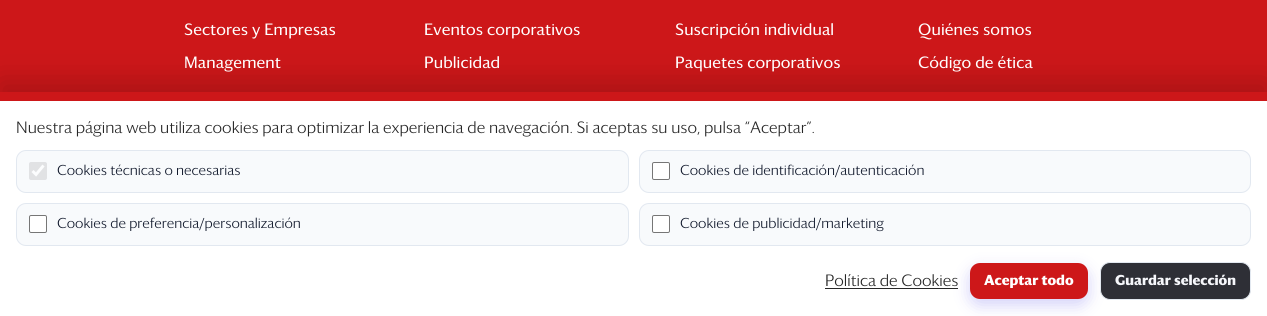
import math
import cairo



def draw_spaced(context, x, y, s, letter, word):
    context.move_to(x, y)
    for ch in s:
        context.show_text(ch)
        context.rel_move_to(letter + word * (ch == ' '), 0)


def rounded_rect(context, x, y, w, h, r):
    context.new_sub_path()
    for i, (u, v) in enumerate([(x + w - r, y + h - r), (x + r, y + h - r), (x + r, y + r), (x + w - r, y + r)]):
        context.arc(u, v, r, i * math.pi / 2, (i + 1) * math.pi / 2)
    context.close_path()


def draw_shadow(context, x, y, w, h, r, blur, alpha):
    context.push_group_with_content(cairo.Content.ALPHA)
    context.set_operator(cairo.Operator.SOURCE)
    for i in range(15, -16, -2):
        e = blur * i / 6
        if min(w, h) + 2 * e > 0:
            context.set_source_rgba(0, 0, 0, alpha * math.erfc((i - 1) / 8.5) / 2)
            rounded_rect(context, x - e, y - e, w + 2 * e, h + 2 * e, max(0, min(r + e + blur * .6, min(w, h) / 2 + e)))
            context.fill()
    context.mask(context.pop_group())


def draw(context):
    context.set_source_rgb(205 / 255, 23 / 255, 25 / 255)
    context.paint()
    context.set_source_rgb(0, 0, 0)
    draw_shadow(context, 0, 82, 1267, 224, 0, 15, 0.18)
    context.set_source_rgb(1, 1, 1)
    context.rectangle(0, 101, 1267, 215)
    context.fill()
    context.set_source_rgb(205 / 255, 23 / 255, 25 / 255)
    context.rectangle(0, 92, 1267, 9)
    context.fill()
    context.set_source_rgb(248 / 255, 250 / 255, 252 / 255)
    rounded_rect(context, 16.5, 150.5, 612, 42, 9.5)
    context.fill_preserve()
    context.set_source_rgb(226 / 255, 232 / 255, 240 / 255)
    context.set_line_width(1)
    context.stroke()
    context.set_source_rgb(225 / 255, 226 / 255, 228 / 255)
    rounded_rect(context, 29, 162, 18, 18, 2)
    context.fill()
    context.new_path()
    context.move_to(32.5, 171)
    context.line_to(36, 174.5)
    context.line_to(43.5, 165.5)
    context.set_source_rgb(252 / 255, 253 / 255, 254 / 255)
    context.set_line_width(2.9)
    context.stroke()
    context.set_source_rgb(248 / 255, 250 / 255, 252 / 255)
    rounded_rect(context, 639.5, 150.5, 611, 42, 9.5)
    context.fill_preserve()
    context.set_source_rgb(226 / 255, 232 / 255, 240 / 255)
    context.set_line_width(1)
    context.stroke()
    context.set_source_rgb(1, 1, 1)
    rounded_rect(context, 652.5, 162.5, 17, 17, 1.5)
    context.fill_preserve()
    context.set_source_rgb(118 / 255, 118 / 255, 118 / 255)
    context.stroke()
    context.set_source_rgb(248 / 255, 250 / 255, 252 / 255)
    rounded_rect(context, 16.5, 203.5, 612, 42, 9.5)
    context.fill_preserve()
    context.set_source_rgb(226 / 255, 232 / 255, 240 / 255)
    context.stroke()
    context.set_source_rgb(1, 1, 1)
    rounded_rect(context, 29.5, 215.5, 17, 17, 1.5)
    context.fill_preserve()
    context.set_source_rgb(118 / 255, 118 / 255, 118 / 255)
    context.stroke()
    context.set_source_rgb(248 / 255, 250 / 255, 252 / 255)
    rounded_rect(context, 639.5, 203.5, 611, 42, 9.5)
    context.fill_preserve()
    context.set_source_rgb(226 / 255, 232 / 255, 240 / 255)
    context.stroke()
    context.set_source_rgb(1, 1, 1)
    rounded_rect(context, 652.5, 215.5, 17, 17, 1.5)
    context.fill_preserve()
    context.set_source_rgb(118 / 255, 118 / 255, 118 / 255)
    context.stroke()
    context.set_source_rgb(38 / 255, 38 / 255, 38 / 255)
    context.rectangle(825, 288, 133, 1)
    context.fill()
    context.set_source_rgb(79 / 255, 70 / 255, 229 / 255)
    draw_shadow(context, 970, 269, 118, 36, 10, 8, 0.25)
    context.set_source_rgb(205 / 255, 23 / 255, 25 / 255)
    rounded_rect(context, 970, 263, 118, 36, 10)
    context.fill()
    context.set_source_rgb(46 / 255, 47 / 255, 54 / 255)
    rounded_rect(context, 1100.5, 262.5, 150, 37, 9.5)
    context.fill_preserve()
    context.set_source_rgb(226 / 255, 232 / 255, 240 / 255)
    context.stroke()
    context.select_font_face("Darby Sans")
    context.set_font_size(16)
    context.set_source_rgb(1, 1, 1)
    draw_spaced(context, 184, 35, "Sectores y Empresas", 0.1, 0)
    draw_spaced(context, 184, 68, "Management", 0.1, 0)
    draw_spaced(context, 424, 35, "Eventos corporativos", 0.1, 0)
    draw_spaced(context, 424, 68, "Publicidad", 0.1, 0)
    draw_spaced(context, 675, 35, "Suscripción individual", 0.1, 0)
    draw_spaced(context, 675, 68, "Paquetes corporativos", 0.1, 0)
    draw_spaced(context, 918, 35, "Quiénes somos", 0.1, 0)
    draw_spaced(context, 918, 68, "Código de ética", 0.1, 0)
    context.select_font_face("Darby Sans Light")
    context.set_source_rgb(38 / 255, 38 / 255, 38 / 255)
    context.move_to(16, 133)
    context.show_text("Nuestra página web utiliza cookies para optimizar la experiencia de navegación. Si aceptas su uso, pulsa “Aceptar”.")
    context.set_font_size(14)
    context.set_source_rgb(15 / 255, 23 / 255, 42 / 255)
    context.move_to(57, 175)
    context.show_text("Cookies técnicas o necesarias")
    context.move_to(680, 175)
    context.show_text("Cookies de identificación/autenticación")
    context.move_to(57, 228)
    context.show_text("Cookies de preferencia/personalización")
    context.move_to(680, 228)
    context.show_text("Cookies de publicidad/marketing")
    context.set_font_size(16)
    context.set_source_rgb(38 / 255, 38 / 255, 38 / 255)
    context.move_to(825, 286)
    context.show_text("Política de Cookies")
    context.select_font_face("Darby Sans", cairo.FontSlant.NORMAL, cairo.FontWeight.BOLD)
    context.set_font_size(14)
    context.set_source_rgb(1, 1, 1)
    context.move_to(984, 285)
    context.show_text("Aceptar todo")
    context.set_source_rgb(246 / 255, 247 / 255, 251 / 255)
    context.move_to(1115, 285)
    context.show_text("Guardar selección")


surface = cairo.ImageSurface(cairo.Format.RGB24, 1267, 316)
context = cairo.Context(surface)
options = cairo.FontOptions()
options.set_hint_metrics(cairo.HintMetrics.OFF)
options.set_hint_style(cairo.HintStyle.NONE)
context.set_font_options(options)
context.set_miter_limit(4)
draw(context)
surface.write_to_png("out.png")
